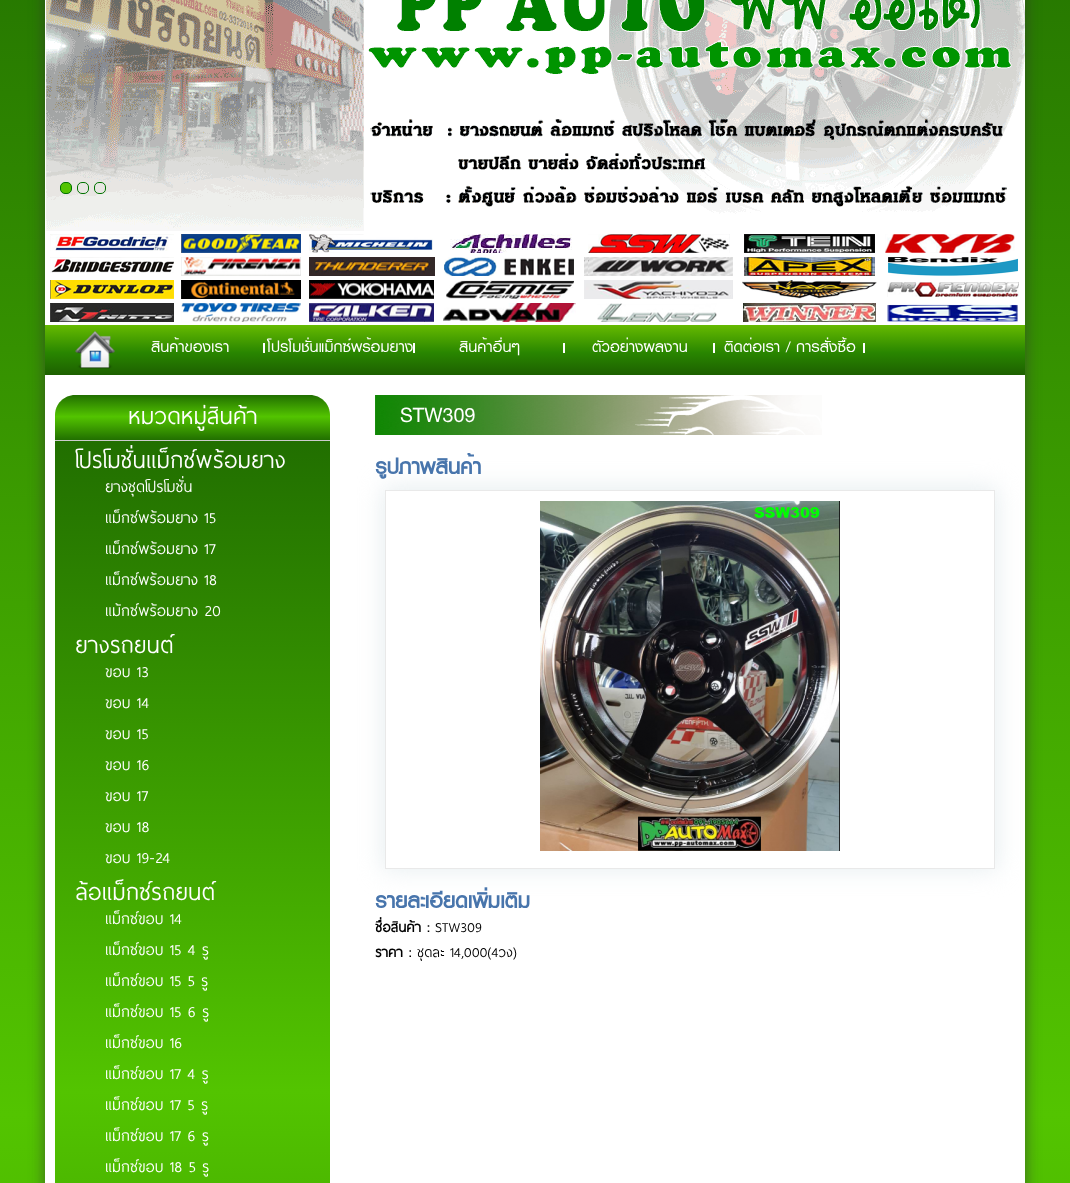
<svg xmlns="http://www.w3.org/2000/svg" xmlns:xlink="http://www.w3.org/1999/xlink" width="1070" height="1183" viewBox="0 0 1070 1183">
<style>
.cls-1{font:22px 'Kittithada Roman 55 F';fill:#ffffff}
.cls-2{font:30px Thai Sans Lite;fill:#ffffff}
.cls-3{font:20px Thai Sans Lite;fill:#ffffff}
.cls-4{font:30px 'Kittithada Roman 55 F';fill:#ffffff}
.cls-5{font:bold 30px 'Kittithada Roman 55 F';fill:#4875ac}
.cls-6{font:bold 18px Thai Sans Lite;fill:#000000}
.cls-7{font:18px Thai Sans Lite;fill:#000000}
</style>
<defs>
<linearGradient id="g1" gradientUnits="userSpaceOnUse" x1="535" y1="-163" x2="535" y2="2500"><stop offset="0" stop-color="#216f00"/><stop offset="0.48" stop-color="#53c400"/><stop offset="1" stop-color="#216f00"/></linearGradient>
<linearGradient id="g2" gradientUnits="userSpaceOnUse" x1="535" y1="325" x2="535" y2="375"><stop offset="0" stop-color="#66ba00"/><stop offset="0.55" stop-color="#298600"/><stop offset="1" stop-color="#1d6000"/></linearGradient>
<linearGradient id="g3" gradientUnits="userSpaceOnUse" x1="193" y1="395" x2="193" y2="440"><stop offset="0" stop-color="#216f00"/><stop offset="0.48" stop-color="#53c400"/><stop offset="1" stop-color="#216f00"/></linearGradient>
<linearGradient id="g4" gradientUnits="userSpaceOnUse" x1="192" y1="441" x2="193" y2="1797"><stop offset="0" stop-color="#216f00"/><stop offset="0.48" stop-color="#53c400"/><stop offset="1" stop-color="#216f00"/></linearGradient>
<clipPath id="clip1"><path d="M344 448H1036V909H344ZM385 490H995V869H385Z" clip-rule="evenodd"/></clipPath>
</defs>
<rect width="100%" height="100%" fill="#ffffff"/>
<rect fill="url(#g1)" x="0" y="0" width="1070" height="1183"/>
<rect fill="#323232" fill-opacity="0.64" filter="blur(7.5px)" x="45" y="-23" width="980" height="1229"/>
<rect fill="#ffffff" x="45" y="0" width="980" height="1183"/>
<image xlink:href="image0.png" x="46" y="0" width="979" height="231"/>
<rect fill="#53c400" stroke="#007200" x="60.5" y="182.5" width="11" height="11" rx="4.5"/>
<rect fill="none" stroke="#007200" x="77.5" y="182.5" width="11" height="11" rx="4.5"/>
<rect fill="none" stroke="#007200" x="94.5" y="182.5" width="11" height="11" rx="4.5"/>
<image xlink:href="image1.png" x="50" y="234" width="124" height="17"/>
<image xlink:href="image2.png" x="181" y="234" width="120" height="19"/>
<image xlink:href="image3.png" x="309" y="234" width="124" height="19"/>
<image xlink:href="image4.png" x="450" y="234" width="122" height="19"/>
<image xlink:href="image5.png" x="588" y="234" width="142" height="19"/>
<image xlink:href="image6.png" x="744" y="234" width="131" height="19"/>
<image xlink:href="image7.png" x="885" y="234" width="130" height="19"/>
<image xlink:href="image8.png" x="50" y="257" width="124" height="16"/>
<image xlink:href="image9.png" x="181" y="257" width="120" height="19"/>
<image xlink:href="image10.png" x="309" y="257" width="126" height="19"/>
<image xlink:href="image11.png" x="444" y="257" width="130" height="19"/>
<image xlink:href="image12.png" x="584" y="257" width="149" height="19"/>
<image xlink:href="image13.png" x="744" y="257" width="131" height="19"/>
<image xlink:href="image14.png" x="888" y="257" width="130" height="19"/>
<image xlink:href="image15.png" x="50" y="280" width="124" height="19"/>
<image xlink:href="image16.png" x="181" y="280" width="120" height="19"/>
<image xlink:href="image17.png" x="309" y="280" width="125" height="19"/>
<image xlink:href="image18.png" x="446" y="280" width="128" height="19"/>
<image xlink:href="image19.png" x="584" y="280" width="149" height="19"/>
<image xlink:href="image20.png" x="742" y="280" width="135" height="19"/>
<image xlink:href="image21.png" x="887" y="282" width="132" height="15"/>
<image xlink:href="image22.png" x="50" y="303" width="124" height="19"/>
<image xlink:href="image23.png" x="181" y="303" width="120" height="19"/>
<image xlink:href="image24.png" x="309" y="303" width="125" height="19"/>
<image xlink:href="image25.png" x="443" y="303" width="133" height="19"/>
<image xlink:href="image26.png" x="597" y="303" width="120" height="19"/>
<image xlink:href="image27.png" x="743" y="303" width="133" height="19"/>
<image xlink:href="image28.png" x="887" y="304" width="131" height="18"/>
<rect fill="url(#g2)" x="45" y="325" width="980" height="50"/>
<image xlink:href="image29.png" x="75" y="331" width="40" height="38"/>
<rect fill="#ffffff" x="263" y="343" width="2" height="10"/>
<rect fill="#ffffff" x="413" y="343" width="2" height="10"/>
<rect fill="#ffffff" x="563" y="343" width="2" height="10"/>
<rect fill="#ffffff" x="713" y="343" width="2" height="10"/>
<rect fill="#ffffff" x="863" y="343" width="2" height="10"/>
<path fill="url(#g3)" d="M75 395H310C321 395 330 404 330 415V440H55V415C55 404 64 395 75 395Z"/>
<rect fill="#cccccc" x="55" y="440" width="275" height="1"/>
<rect fill="url(#g4)" x="55" y="441" width="275" height="742"/>
<image xlink:href="image30.png" x="375" y="395" width="447" height="40"/>
<g clip-path="url(#clip1)">
<rect fill="#e7eef0" filter="blur(12.5px)" x="383" y="487" width="614" height="383"/>
</g>
<rect fill="none" stroke="#e9e9e9" x="385.5" y="490.5" width="609" height="378"/>
<image xlink:href="image31.png" x="540" y="501" width="300" height="350"/>
<text class="cls-1" x="151" y="352">สินค้าของเรา</text>
<text class="cls-1" x="267" y="352">โปรโมชั่นแม็กซ์พร้อมยาง</text>
<text class="cls-1" x="459" y="352">สินค้าอื่นๆ</text>
<text class="cls-1" x="592" y="352">ตัวอย่างผลงาน</text>
<text class="cls-1" x="724" y="352">ติดต่อเรา / การสั่งซื้อ</text>
<text class="cls-2" x="128" y="424">หมวดหมู่สินค้า</text>
<text class="cls-2" x="75" y="468">โปรโมชั่นแม็กซ์พร้อมยาง</text>
<text class="cls-3"><tspan x="105" y="492">ยางชุดโปรโมชั่น</tspan><tspan x="105" y="523">แม็กซ์พร้อมยาง 15</tspan><tspan x="105" y="554">แม็กซ์พร้อมยาง 17</tspan><tspan x="105" y="585">แม็กซ์พร้อมยาง 18</tspan><tspan x="105" y="616">แม้กซ์พร้อมยาง 20</tspan></text>
<text class="cls-2" x="75" y="653">ยางรถยนต์</text>
<text class="cls-3"><tspan x="105" y="677">ขอบ 13</tspan><tspan x="105" y="708">ขอบ 14</tspan><tspan x="105" y="739">ขอบ 15</tspan><tspan x="105" y="770">ขอบ 16</tspan><tspan x="105" y="801">ขอบ 17</tspan><tspan x="105" y="832">ขอบ 18</tspan><tspan x="105" y="863">ขอบ 19-24</tspan></text>
<text class="cls-2" x="75" y="900">ล้อแม็กซ์รถยนต์</text>
<text class="cls-3"><tspan x="105" y="924">แม็กซ์ขอบ 14</tspan><tspan x="105" y="955">แม็กซ์ขอบ 15 4 รู</tspan><tspan x="105" y="986">แม็กซ์ขอบ 15 5 รู</tspan><tspan x="105" y="1017">แม็กซ์ขอบ 15 6 รู</tspan><tspan x="105" y="1048">แม็กซ์ขอบ 16</tspan><tspan x="105" y="1079">แม็กซ์ขอบ 17 4 รู</tspan><tspan x="105" y="1110">แม็กซ์ขอบ 17 5 รู</tspan><tspan x="105" y="1141">แม็กซ์ขอบ 17 6 รู</tspan><tspan x="105" y="1172">แม็กซ์ขอบ 18 5 รู</tspan></text>
<text class="cls-4" x="400" y="422">STW309</text>
<text class="cls-5" x="375" y="474">รูปภาพสินค้า</text>
<text class="cls-5" x="375" y="908">รายละเอียดเพิ่มเติม</text>
<text class="cls-6" x="375" y="932">ชื่อสินค้า :</text>
<text class="cls-7" x="435" y="932">STW309</text>
<text class="cls-6" x="375" y="957">ราคา :</text>
<text class="cls-7" x="417" y="957">ชุดละ 14,000(4วง)</text>
</svg>
